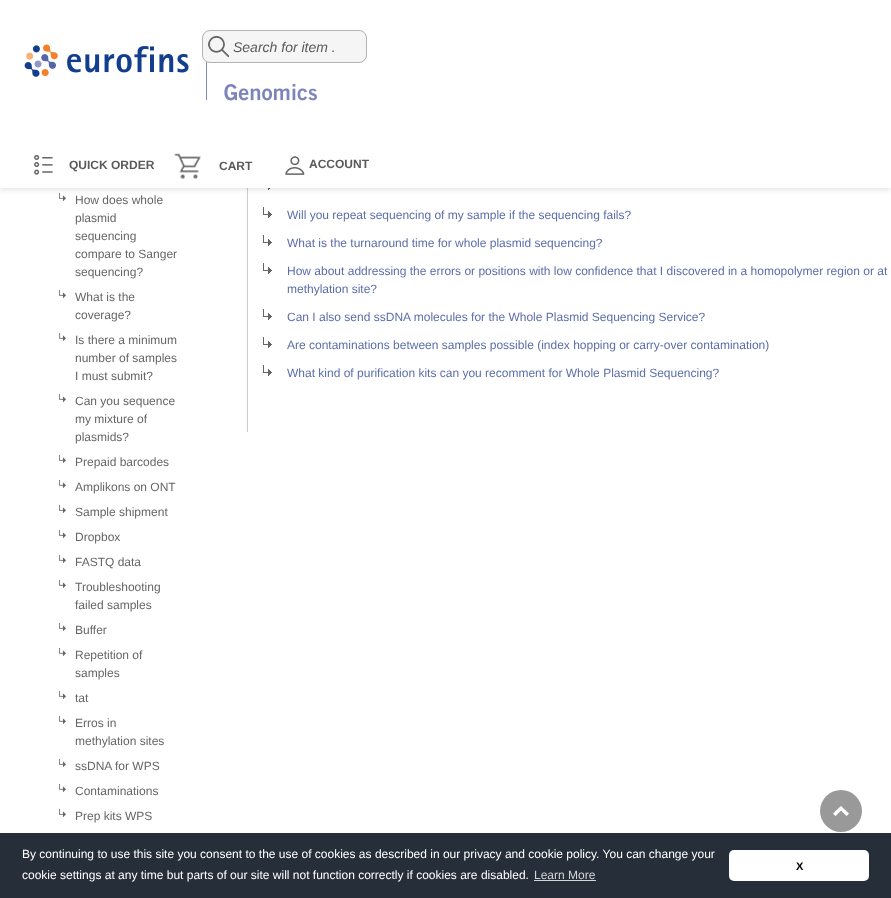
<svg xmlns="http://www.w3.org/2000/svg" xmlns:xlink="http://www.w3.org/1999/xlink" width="891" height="898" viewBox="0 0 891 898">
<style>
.cls-1{font:italic 14px Liberation Sans;fill:#5a5a5a}
.cls-2{font:bold 12px Liberation Sans;fill:#5a5a5a}
.cls-3{font:12px Liberation Sans;fill:#666666}
.cls-4{font:12px Liberation Sans;fill:#5c6eaa}
.cls-5{font:12px Liberation Sans;fill:#ffffff}
.cls-6{font:12px Liberation Sans;fill:#d3d5d7}
.cls-7{font:bold 11px Liberation Sans;fill:#000000}
</style>
<rect width="100%" height="100%" fill="#ffffff"/>
<image xlink:href="image5.png" x="59" y="193" width="7" height="8"/>
<rect fill="#cccccc" x="247" y="188" width="1" height="244"/>
<image xlink:href="image6.png" x="268" y="188" width="2" height="2"/>
<rect fill="#000000" fill-opacity="0.1" filter="blur(2.5px)" x="0" y="2" width="891" height="188"/>
<rect fill="#ffffff" x="0" y="0" width="891" height="188"/>
<image xlink:href="image1.png" x="24" y="44" width="293" height="57"/>
<rect fill="#f5f5f5" x="202" y="30" width="165" height="33" rx="8"/>
<image xlink:href="image0.png" x="208" y="36" width="21" height="21"/>
<rect fill="none" stroke="#b4b4b4" x="202.5" y="30.5" width="164" height="32" rx="7.5"/>
<image xlink:href="image2.png" x="34" y="155" width="19" height="20"/>
<image xlink:href="image3.png" x="174" y="153" width="27" height="26"/>
<image xlink:href="image4.png" x="285" y="156" width="20" height="19"/>
<image xlink:href="image5.png" x="59" y="290" width="7" height="8"/>
<image xlink:href="image5.png" x="59" y="333" width="7" height="8"/>
<image xlink:href="image5.png" x="59" y="394" width="7" height="8"/>
<image xlink:href="image5.png" x="59" y="455" width="7" height="8"/>
<image xlink:href="image5.png" x="59" y="480" width="7" height="8"/>
<image xlink:href="image5.png" x="59" y="505" width="7" height="8"/>
<image xlink:href="image5.png" x="59" y="530" width="7" height="8"/>
<image xlink:href="image5.png" x="59" y="555" width="7" height="8"/>
<image xlink:href="image5.png" x="59" y="580" width="7" height="8"/>
<image xlink:href="image5.png" x="59" y="623" width="7" height="8"/>
<image xlink:href="image5.png" x="59" y="648" width="7" height="8"/>
<image xlink:href="image5.png" x="59" y="691" width="7" height="8"/>
<image xlink:href="image5.png" x="59" y="716" width="7" height="8"/>
<image xlink:href="image5.png" x="59" y="759" width="7" height="8"/>
<image xlink:href="image5.png" x="59" y="784" width="7" height="8"/>
<image xlink:href="image5.png" x="59" y="809" width="7" height="8"/>
<image xlink:href="image7.png" x="263" y="207" width="9" height="11"/>
<image xlink:href="image7.png" x="263" y="235" width="9" height="11"/>
<image xlink:href="image7.png" x="263" y="263" width="9" height="11"/>
<image xlink:href="image7.png" x="263" y="309" width="9" height="11"/>
<image xlink:href="image7.png" x="263" y="337" width="9" height="11"/>
<image xlink:href="image7.png" x="263" y="365" width="9" height="11"/>
<circle fill="#000000" fill-opacity="0.4" cx="841" cy="811" r="21"/>
<image xlink:href="image8.png" x="833" y="806" width="16" height="10"/>
<rect fill="#252e39" x="0" y="833" width="891" height="65"/>
<rect fill="#d3d5d7" x="534" y="880" width="62" height="1"/>
<rect fill="#fefffe" x="729" y="850" width="140" height="31" rx="5"/>
<text class="cls-1" x="233" y="52">Search for item .</text>
<text class="cls-2" x="69" y="169">QUICK ORDER</text>
<text class="cls-2" x="219" y="170">CART</text>
<text class="cls-2" x="309" y="168">ACCOUNT</text>
<text class="cls-3"><tspan x="75" y="204">How does whole</tspan><tspan x="75" y="222">plasmid</tspan><tspan x="75" y="240">sequencing</tspan><tspan x="75" y="258">compare to Sanger</tspan><tspan x="75" y="276">sequencing?</tspan></text>
<text class="cls-3"><tspan x="75" y="301">What is the</tspan><tspan x="75" y="319">coverage?</tspan></text>
<text class="cls-3"><tspan x="75" y="344">Is there a minimum</tspan><tspan x="75" y="362">number of samples</tspan><tspan x="75" y="380">I must submit?</tspan></text>
<text class="cls-3"><tspan x="75" y="405">Can you sequence</tspan><tspan x="75" y="423">my mixture of</tspan><tspan x="75" y="441">plasmids?</tspan></text>
<text class="cls-3" x="75" y="466">Prepaid barcodes</text>
<text class="cls-3" x="75" y="491">Amplikons on ONT</text>
<text class="cls-3" x="75" y="516">Sample shipment</text>
<text class="cls-3" x="75" y="541">Dropbox</text>
<text class="cls-3" x="75" y="566">FASTQ data</text>
<text class="cls-3"><tspan x="75" y="591">Troubleshooting</tspan><tspan x="75" y="609">failed samples</tspan></text>
<text class="cls-3" x="75" y="634">Buffer</text>
<text class="cls-3"><tspan x="75" y="659">Repetition of</tspan><tspan x="75" y="677">samples</tspan></text>
<text class="cls-3" x="75" y="702">tat</text>
<text class="cls-3"><tspan x="75" y="727">Erros in</tspan><tspan x="75" y="745">methylation sites</tspan></text>
<text class="cls-3" x="75" y="770">ssDNA for WPS</text>
<text class="cls-3" x="75" y="795">Contaminations</text>
<text class="cls-3" x="75" y="820">Prep kits WPS</text>
<text class="cls-4" x="287" y="219">Will you repeat sequencing of my sample if the sequencing fails?</text>
<text class="cls-4" x="287" y="247">What is the turnaround time for whole plasmid sequencing?</text>
<text class="cls-4"><tspan x="287" y="275">How about addressing the errors or positions with low confidence that I discovered in a homopolymer region or at</tspan><tspan x="287" y="293">methylation site?</tspan></text>
<text class="cls-4" x="287" y="321">Can I also send ssDNA molecules for the Whole Plasmid Sequencing Service?</text>
<text class="cls-4" x="287" y="349">Are contaminations between samples possible (index hopping or carry-over contamination)</text>
<text class="cls-4" x="287" y="377">What kind of purification kits can you recomment for Whole Plasmid Sequencing?</text>
<text class="cls-5"><tspan x="22" y="858">By continuing to use this site you consent to the use of cookies as described in our privacy and cookie policy. You can change your</tspan><tspan x="22" y="879">cookie settings at any time but parts of our site will not function correctly if cookies are disabled.</tspan></text>
<text class="cls-6" x="534" y="879">Learn More</text>
<text class="cls-7" x="796" y="870">X</text>
</svg>
